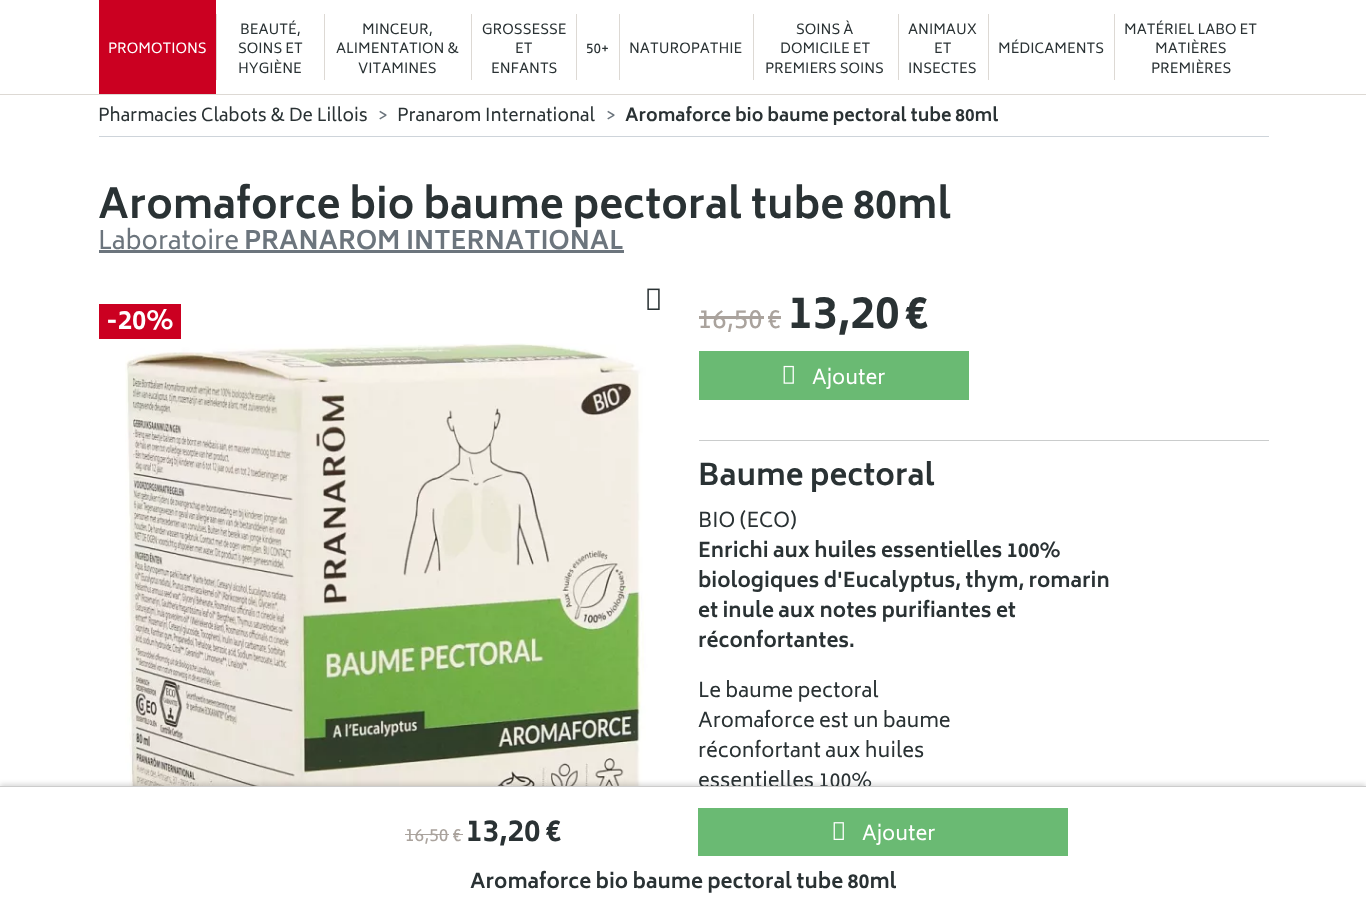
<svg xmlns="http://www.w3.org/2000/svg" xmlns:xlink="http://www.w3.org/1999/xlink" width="1366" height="917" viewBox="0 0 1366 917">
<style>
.cls-1{font:13.75px Biryani;fill:#ffffff}
.cls-2{font:13.75px Biryani;fill:#2a3234}
.cls-3{font:17.5px Biryani;fill:#2a3234}
.cls-4{font:17.5px Biryani;fill:#6c757d}
.cls-5{font:bold 17.5px Biryani;fill:#2a3234}
.cls-6{font:bold 40px Biryani;fill:#2a3234}
.cls-7{font:25px Biryani;fill:#6c757d}
.cls-8{font:bold 25px Biryani;fill:#6c757d}
.cls-9{font:bold 26px Biryani;fill:#ffffff}
.cls-10{font:26px Biryani;fill:#aaa39d}
.cls-11{font:bold 45px Biryani;fill:#2a3234}
.cls-12{font:20px Biryani;fill:#ffffff}
.cls-13{font:bold 29.5px Biryani;fill:#2a3234}
.cls-14{font:20px Biryani;fill:#2a3234}
.cls-15{font:bold 20px Biryani;fill:#2a3234}
.cls-16{font:17.5px Biryani;fill:#aaa39d}
.cls-17{font:bold 30px Biryani;fill:#2a3234}
</style>
<defs>
<clipPath id="clip1"><rect x="699" y="461" width="570" height="438"/></clipPath>
</defs>
<rect width="100%" height="100%" fill="#ffffff"/>
<rect fill="#ddd9d4" x="0" y="94" width="1366" height="1"/>
<rect fill="#cb0021" x="99" y="0" width="117" height="94"/>
<rect fill="#ddd9d4" x="216" y="14" width="1" height="66"/>
<rect fill="#ddd9d4" x="324" y="14" width="1" height="66"/>
<rect fill="#ddd9d4" x="471" y="14" width="1" height="66"/>
<rect fill="#ddd9d4" x="576" y="14" width="1" height="66"/>
<rect fill="#ddd9d4" x="619" y="14" width="1" height="66"/>
<rect fill="#ddd9d4" x="753" y="14" width="1" height="66"/>
<rect fill="#ddd9d4" x="898" y="14" width="1" height="66"/>
<rect fill="#ddd9d4" x="988" y="14" width="1" height="66"/>
<rect fill="#ddd9d4" x="1114" y="14" width="1" height="66"/>
<rect fill="#ced4da" x="99" y="136" width="1170" height="1"/>
<rect fill="#6c757d" x="99" y="250" width="525" height="3"/>
<image xlink:href="image0.png" x="647" y="288" width="13" height="22"/>
<rect fill="#cb0021" x="99" y="304" width="82" height="35"/>
<image xlink:href="image1.png" x="125" y="343" width="544" height="443"/>
<rect fill="#aaa39d" x="699" y="316" width="65" height="3"/>
<rect fill="#aaa39d" x="768" y="316" width="13" height="3"/>
<rect fill="#6aba73" x="699" y="351" width="270" height="49"/>
<image xlink:href="image2.png" x="783" y="365" width="11" height="19"/>
<rect fill="#cacccc" x="699" y="440" width="570" height="1"/>
<rect fill="#000000" fill-opacity="0.15" filter="blur(2.5px)" x="0" y="784" width="1366" height="131"/>
<text class="cls-1" x="108" y="53">PROMOTIONS</text>
<text class="cls-2" x="240" y="34">BEAUTÉ,</text>
<text class="cls-2"><tspan x="238" y="53">SOINS ET</tspan><tspan x="238" y="73">HYGIÈNE</tspan></text>
<text class="cls-2" x="362" y="34">MINCEUR,</text>
<text class="cls-2" x="336" y="53">ALIMENTATION &amp;</text>
<text class="cls-2" x="358" y="73">VITAMINES</text>
<text class="cls-2" x="482" y="34">GROSSESSE</text>
<text class="cls-2" x="515" y="53">ET</text>
<text class="cls-2" x="491" y="73">ENFANTS</text>
<text class="cls-2" x="586" y="53">50+</text>
<text class="cls-2" x="629" y="53">NATUROPATHIE</text>
<text class="cls-2" x="796" y="34">SOINS À</text>
<text class="cls-2" x="780" y="53">DOMICILE ET</text>
<text class="cls-2" x="765" y="73">PREMIERS SOINS</text>
<text class="cls-2" x="908" y="34">ANIMAUX</text>
<text class="cls-2" x="934" y="53">ET</text>
<text class="cls-2" x="908" y="73">INSECTES</text>
<text class="cls-2" x="998" y="53">MÉDICAMENTS</text>
<text class="cls-2" x="1124" y="34">MATÉRIEL LABO ET</text>
<text class="cls-2" x="1155" y="53">MATIÈRES</text>
<text class="cls-2" x="1151" y="73">PREMIÈRES</text>
<text class="cls-3" x="98" y="121">Pharmacies Clabots &amp; De Lillois</text>
<text class="cls-4" x="378" y="121">&gt;</text>
<text class="cls-3" x="397" y="121">Pranarom International</text>
<text class="cls-4" x="606" y="121">&gt;</text>
<text class="cls-5" x="625" y="121">Aromaforce bio baume pectoral tube 80ml</text>
<text class="cls-6" x="98" y="218">Aromaforce bio baume pectoral tube 80ml</text>
<text class="cls-7" x="98" y="249">Laboratoire</text>
<text class="cls-8" x="244" y="249">PRANAROM INTERNATIONAL</text>
<text class="cls-9" x="106" y="329">-20%</text>
<text class="cls-10" x="698" y="328">16,50</text>
<text class="cls-10" x="767" y="328">€</text>
<text class="cls-11" x="788" y="328">13,20</text>
<text class="cls-11" x="904" y="328">€</text>
<text class="cls-12" x="812" y="384">Ajouter</text>
<g clip-path="url(#clip1)">
<text class="cls-13" x="698" y="485">Baume pectoral</text>
</g>
<text class="cls-14" x="698" y="527">BIO (ECO)</text>
<text class="cls-15"><tspan x="698" y="557">Enrichi aux huiles essentielles 100%</tspan><tspan x="698" y="587">biologiques d'Eucalyptus, thym, romarin</tspan><tspan x="698" y="617">et inule aux notes purifiantes et</tspan><tspan x="698" y="647">réconfortantes.</tspan></text>
<text class="cls-14"><tspan x="698" y="697">Le baume pectoral</tspan><tspan x="698" y="727">Aromaforce est un baume</tspan><tspan x="698" y="757">réconfortant aux huiles</tspan><tspan x="698" y="787">essentielles 100%</tspan></text>
<rect fill="#ffffff" x="0" y="787" width="1366" height="130"/>
<rect fill="#cccccc" x="0" y="786" width="1366" height="1"/>
<text class="cls-16" x="405" y="841">16,50 €</text>
<rect fill="#aaa39d" x="405" y="834" width="44" height="1"/>
<rect fill="#aaa39d" x="453" y="834" width="10" height="1"/>
<text class="cls-17" x="466" y="841">13,20</text>
<text class="cls-17" x="545" y="841">€</text>
<rect fill="#6aba73" x="698" y="808" width="370" height="48"/>
<image xlink:href="image3.png" x="833" y="822" width="11" height="18"/>
<text class="cls-12" x="862" y="840">Ajouter</text>
<text class="cls-15" x="470" y="888">Aromaforce bio baume pectoral tube 80ml</text>
</svg>
